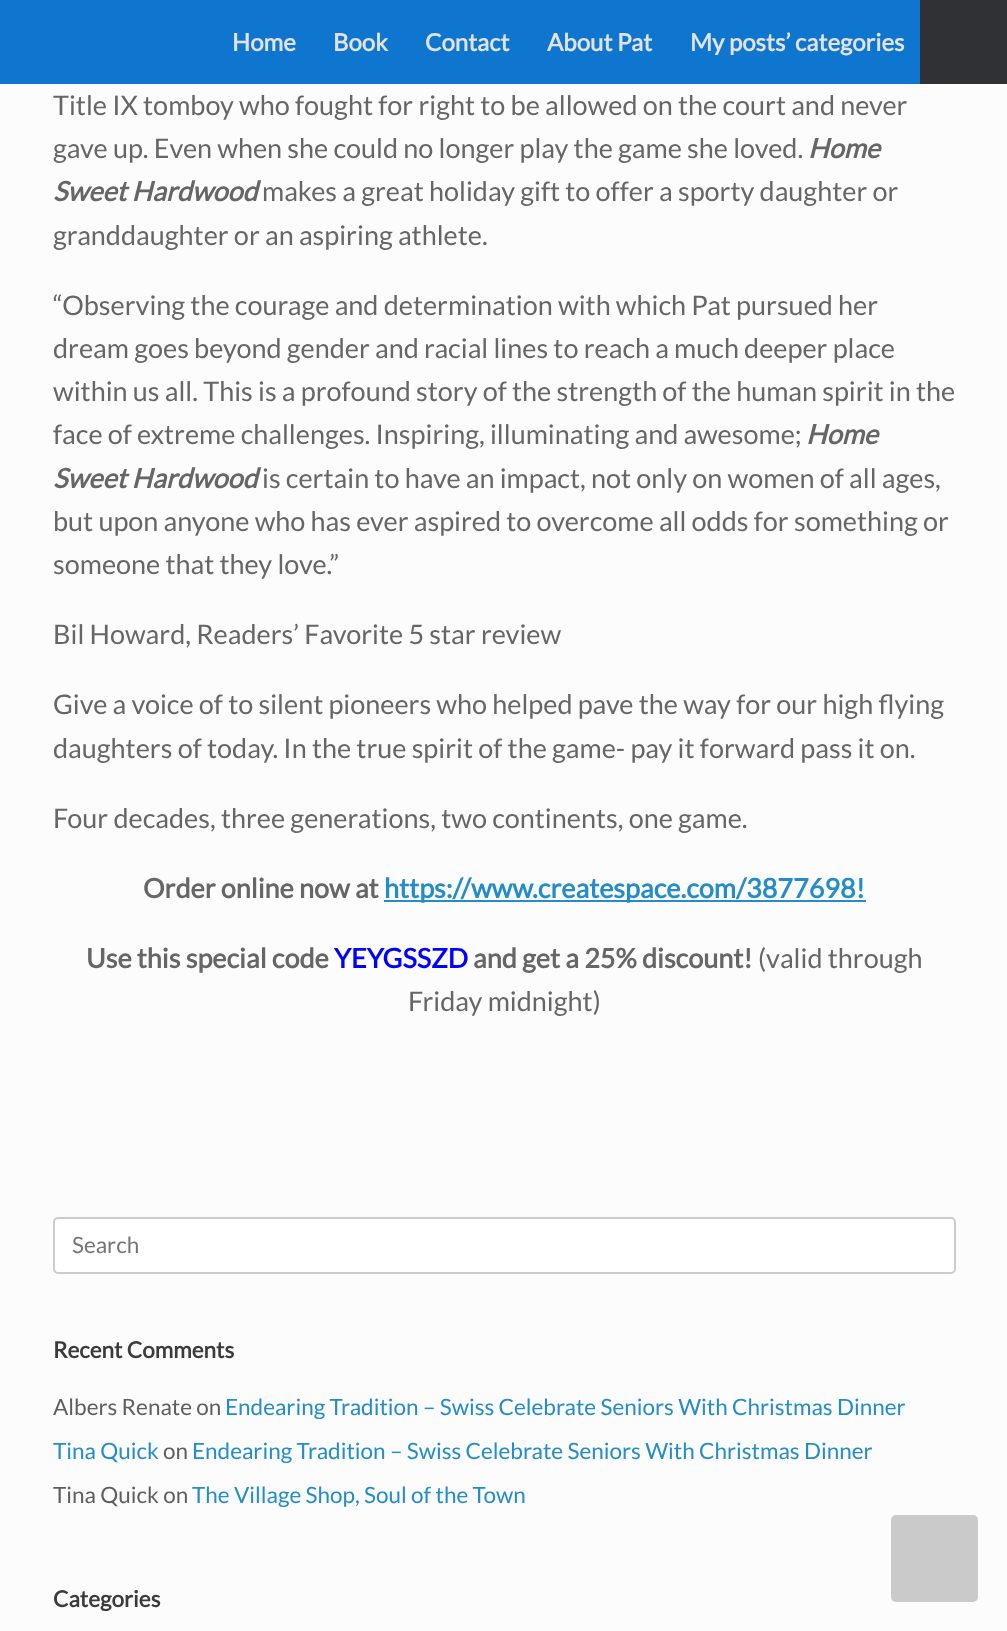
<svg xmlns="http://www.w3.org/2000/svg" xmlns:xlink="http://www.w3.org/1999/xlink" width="1007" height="1631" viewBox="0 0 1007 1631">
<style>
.cls-1{font:bold 24px Lato;fill:#e2e2e2}
.cls-2{font:27px Lato;fill:#666666}
.cls-3{font:italic bold 27px Lato;fill:#666666}
.cls-4{font:bold 27px Lato;fill:#666666}
.cls-5{font:bold 27px Lato;fill:#248cc8}
.cls-6{font:bold 27px Lato;fill:#0000ff}
.cls-7{font:22.5px Lato;fill:#757575}
.cls-8{font:bold 22.5px Lato;fill:#3b3b3b}
.cls-9{font:22.5px Lato;fill:#5e5e5e}
.cls-10{font:22.5px Lato;fill:#248cc8}
</style>
<rect width="100%" height="100%" fill="#fcfcfc"/>
<rect fill="#0f76d0" x="0" y="0" width="920" height="84"/>
<rect fill="#303134" x="920" y="0" width="87" height="84"/>
<rect fill="#248cc8" x="384" y="900" width="482" height="2"/>
<rect fill="#ffffff" stroke="#cccccc" stroke-width="2" x="54" y="1218" width="901" height="55" rx="4"/>
<rect fill="#cacaca" x="891" y="1515" width="87" height="87" rx="5"/>
<text class="cls-1" x="232" y="51">Home</text>
<text class="cls-1" x="333" y="51">Book</text>
<text class="cls-1" x="425" y="51">Contact</text>
<text class="cls-1" x="547" y="51">About Pat</text>
<text class="cls-1" x="690" y="51">My posts’ categories</text>
<text class="cls-2"><tspan x="53" y="115">Title IX tomboy who fought for right to be allowed on the court and never</tspan><tspan x="53" y="158">gave up. Even when she could no longer play the game she loved.</tspan></text>
<text class="cls-3" x="808" y="158">Home</text>
<text class="cls-3" x="53" y="201">Sweet Hardwood</text>
<text class="cls-2" x="262" y="201">makes a great holiday gift to offer a sporty daughter or</text>
<text class="cls-2" x="53" y="245">granddaughter or an aspiring athlete.</text>
<text class="cls-2"><tspan x="53" y="315">“Observing the courage and determination with which Pat pursued her</tspan><tspan x="53" y="358">dream goes beyond gender and racial lines to reach a much deeper place</tspan><tspan x="53" y="401">within us all. This is a profound story of the strength of the human spirit in the</tspan><tspan x="53" y="444">face of extreme challenges. Inspiring, illuminating and awesome;</tspan></text>
<text class="cls-3" x="806" y="444">Home</text>
<text class="cls-3" x="53" y="488">Sweet Hardwood</text>
<text class="cls-2" x="262" y="488">is certain to have an impact, not only on women of all ages,</text>
<text class="cls-2"><tspan x="53" y="531">but upon anyone who has ever aspired to overcome all odds for something or</tspan><tspan x="53" y="574">someone that they love.”</tspan></text>
<text class="cls-2" x="53" y="644">Bil Howard, Readers’ Favorite 5 star review</text>
<text class="cls-2"><tspan x="53" y="714">Give a voice of to silent pioneers who helped pave the way for our high flying</tspan><tspan x="53" y="758">daughters of today. In the true spirit of the game- pay it forward pass it on.</tspan></text>
<text class="cls-2" x="53" y="828">Four decades, three generations, two continents, one game.</text>
<text class="cls-4" x="143" y="898">Order online now at</text>
<text class="cls-5" x="384" y="898">https://www.createspace.com/3877698!</text>
<text class="cls-4" x="86" y="968">Use this special code</text>
<text class="cls-6" x="334" y="968">YEYGSSZD</text>
<text class="cls-4" x="473" y="968">and get a 25% discount!</text>
<text class="cls-2" x="758" y="968">(valid through</text>
<text class="cls-2" x="408" y="1011">Friday midnight)</text>
<text class="cls-7" x="72" y="1253">Search</text>
<text class="cls-8" x="53" y="1358">Recent Comments</text>
<text class="cls-9" x="53" y="1415">Albers Renate on</text>
<text class="cls-10" x="225" y="1415">Endearing Tradition – Swiss Celebrate Seniors With Christmas Dinner</text>
<text class="cls-10" x="53" y="1459">Tina Quick</text>
<text class="cls-9" x="163" y="1459">on</text>
<text class="cls-10" x="192" y="1459">Endearing Tradition – Swiss Celebrate Seniors With Christmas Dinner</text>
<text class="cls-9" x="53" y="1503">Tina Quick on</text>
<text class="cls-10" x="192" y="1503">The Village Shop, Soul of the Town</text>
<text class="cls-8" x="53" y="1607">Categories</text>
</svg>
